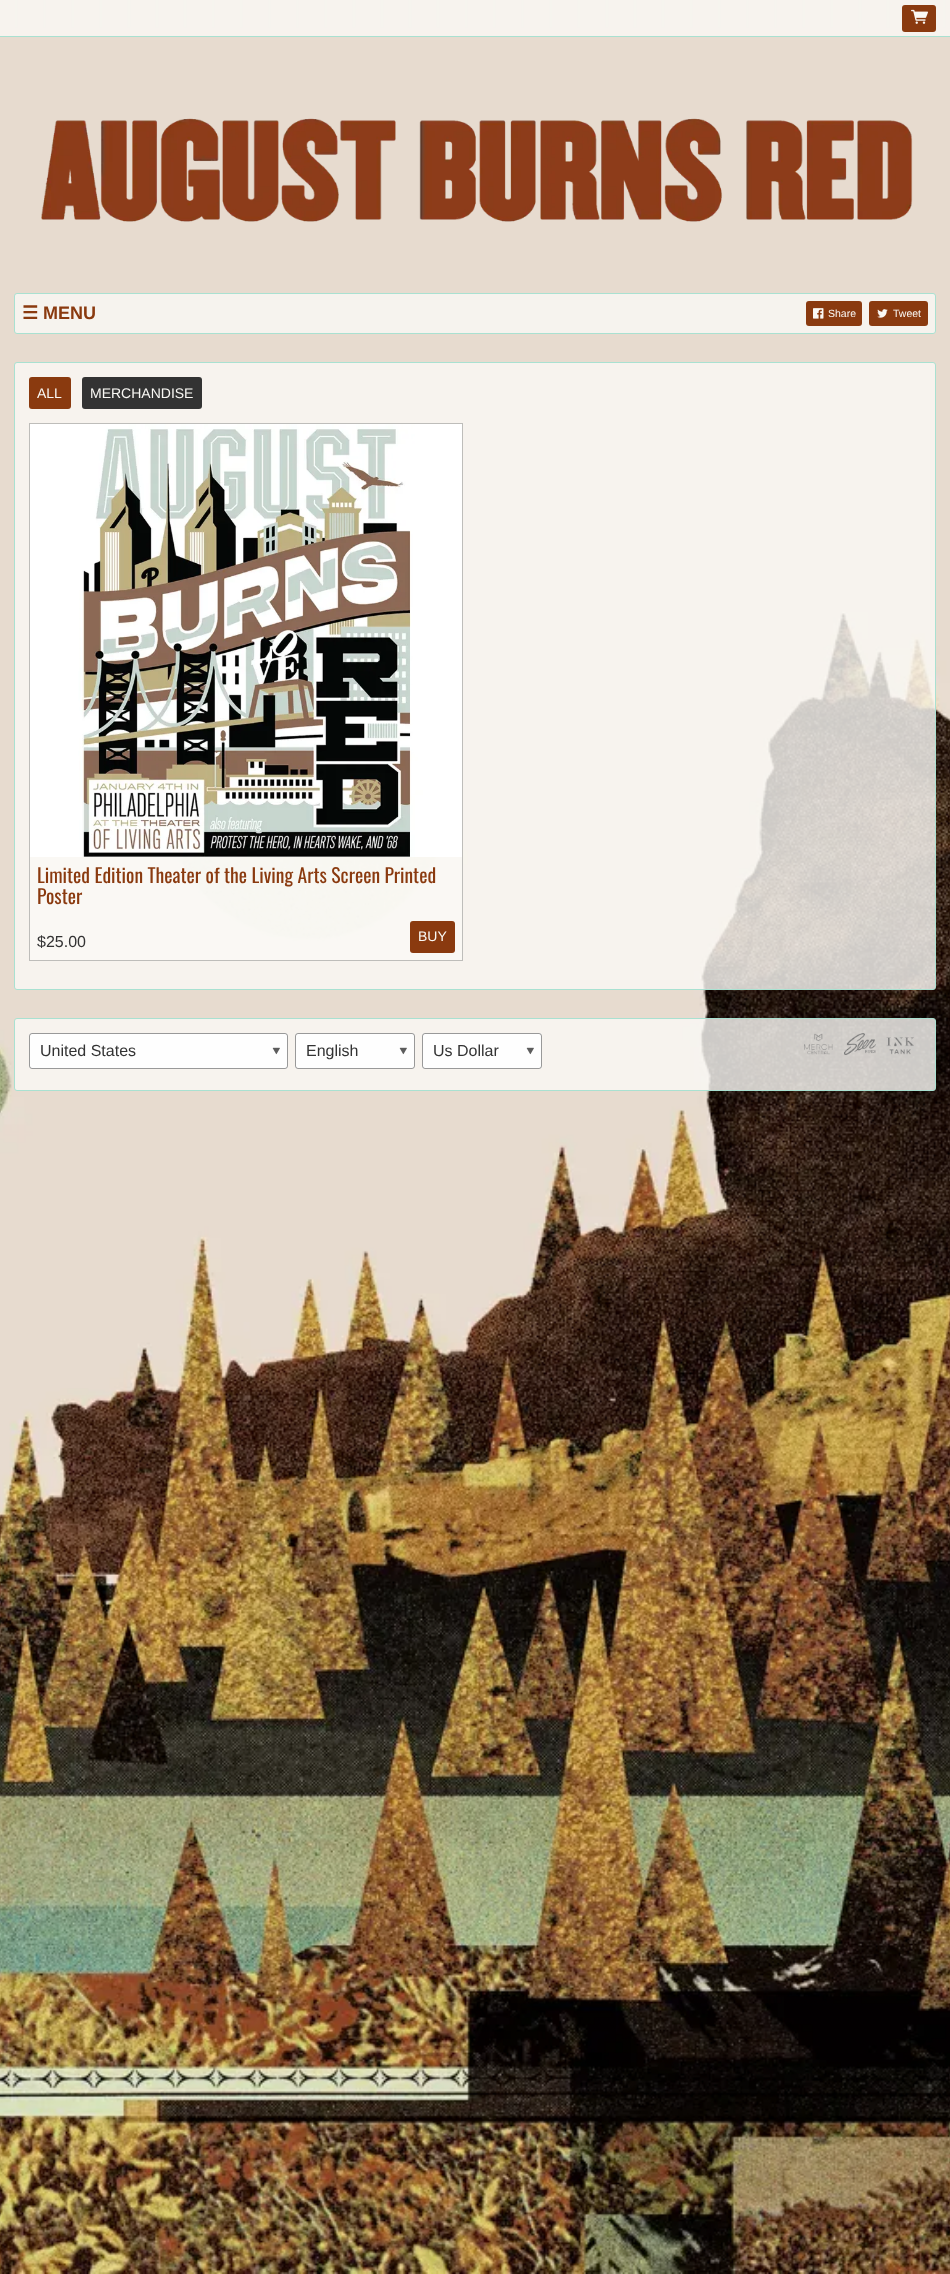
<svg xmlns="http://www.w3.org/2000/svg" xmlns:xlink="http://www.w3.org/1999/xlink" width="950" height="2274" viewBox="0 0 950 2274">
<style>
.cls-1{font:bold 18px DejaVu Sans;fill:#8a3a0f}
.cls-2{font:bold 18px Liberation Sans;fill:#8a3a0f}
.cls-3{font:10.5px Liberation Sans;fill:#faf9f5}
.cls-4{font:14px Liberation Sans;fill:#faf9f5}
.cls-5{font:19.6px Oswald;fill:#8a3a0f}
.cls-6{font:16px Liberation Sans;fill:#333333}
</style>
<rect width="100%" height="100%" fill="#ffffff"/>
<image xlink:href="image0.png" x="0" y="0" width="950" height="2274"/>
<rect fill="#faf9f5" fill-opacity="0.81" x="0" y="0" width="950" height="36"/>
<rect fill="#a9e1d1" x="0" y="36" width="950" height="1"/>
<rect fill="#8a3a0f" x="902" y="5" width="34" height="27" rx="3"/>
<image xlink:href="image1.png" x="911" y="9" width="17" height="15"/>
<image xlink:href="image2.png" x="41" y="118" width="872" height="104"/>
<rect fill="#f6f3ee" stroke="#a9e1d1" x="14.5" y="293.5" width="921" height="40" rx="2.5"/>
<rect fill="#8a3a0f" x="806" y="301" width="56" height="25" rx="3"/>
<image xlink:href="image3.png" x="813" y="308" width="11" height="11"/>
<rect fill="#8a3a0f" x="869" y="301" width="59" height="25" rx="3"/>
<image xlink:href="image4.png" x="877" y="309" width="11" height="9"/>
<rect fill="#faf9f5" fill-opacity="0.81" stroke="#a9e1d1" x="14.5" y="362.5" width="921" height="627" rx="2.5"/>
<rect fill="#8a3a0f" x="29" y="377" width="42" height="32" rx="3"/>
<rect fill="#333333" x="82" y="377" width="120" height="32" rx="3"/>
<rect fill="#faf9f5" fill-opacity="0.81" x="30" y="857" width="432" height="103"/>
<rect fill="none" stroke="#bebdba" x="29.5" y="423.5" width="433" height="537"/>
<image xlink:href="image5.png" x="30" y="424" width="432" height="433"/>
<rect fill="#8a3a0f" x="410" y="921" width="45" height="32" rx="3"/>
<rect fill="#faf9f5" fill-opacity="0.81" stroke="#a9e1d1" x="14.5" y="1018.5" width="921" height="72" rx="2.5"/>
<rect fill="#fefefe" x="29" y="1033" width="259" height="36" rx="3"/>
<rect fill="none" stroke="#333333" stroke-opacity="0.5" x="29.5" y="1033.5" width="258" height="35" rx="2.5"/>
<image xlink:href="image6.png" x="272" y="1047" width="8" height="8"/>
<rect fill="#fefefe" x="295" y="1033" width="120" height="36" rx="3"/>
<rect fill="none" stroke="#333333" stroke-opacity="0.5" x="295.5" y="1033.5" width="119" height="35" rx="2.5"/>
<image xlink:href="image6.png" x="399" y="1047" width="8" height="8"/>
<rect fill="#fefefe" x="422" y="1033" width="120" height="36" rx="3"/>
<rect fill="none" stroke="#333333" stroke-opacity="0.5" x="422.5" y="1033.5" width="119" height="35" rx="2.5"/>
<image xlink:href="image6.png" x="526" y="1047" width="8" height="8"/>
<image xlink:href="image7.png" x="804" y="1033" width="110" height="22"/>
<text class="cls-1" x="22" y="319">☰</text>
<text class="cls-2" x="43" y="319">MENU</text>
<text class="cls-3" x="828" y="317">Share</text>
<text class="cls-3" x="893" y="317">Tweet</text>
<text class="cls-4" x="37" y="398">ALL</text>
<text class="cls-4" x="90" y="398">MERCHANDISE</text>
<text class="cls-5"><tspan x="37" y="883">Limited Edition Theater of the Living Arts Screen Printed</tspan><tspan x="37" y="904">Poster</tspan></text>
<text class="cls-6" x="37" y="947">$25.00</text>
<text class="cls-4" x="418" y="941">BUY</text>
<text class="cls-6" x="40" y="1056">United States</text>
<text class="cls-6" x="306" y="1056">English</text>
<text class="cls-6" x="433" y="1056">Us Dollar</text>
</svg>
